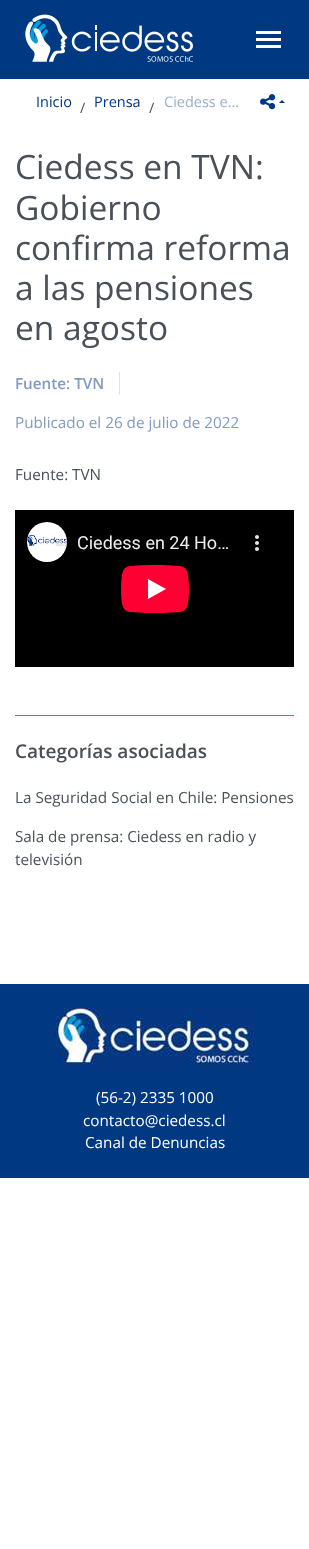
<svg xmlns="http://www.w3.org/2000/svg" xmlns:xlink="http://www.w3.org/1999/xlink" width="309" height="1549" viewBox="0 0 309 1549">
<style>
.cls-1{font:14.5px Open Sans;fill:#003882}
.cls-2{font:14.5px Open Sans;fill:#495057}
.cls-3{font:14.5px Open Sans;fill:#99afcd}
.cls-4{font:33.5px Open Sans;fill:#495057}
.cls-5{font:600 15.25px Open Sans;fill:#8299c2}
.cls-6{font:15.25px Open Sans;fill:#8299c2}
.cls-7{font:15.25px Open Sans;fill:#495057}
.cls-8{font:600 19px Open Sans;fill:#495057}
.cls-9{font:15.25px Open Sans;fill:#ffffff}
</style>
<rect width="100%" height="100%" fill="#ffffff"/>
<rect fill="#003882" x="0" y="0" width="309" height="79"/>
<image xlink:href="image0.png" x="25" y="14" width="168" height="48"/>
<rect fill="#ffffff" x="256" y="31" width="25" height="3"/>
<rect fill="#ffffff" x="256" y="38" width="25" height="3"/>
<rect fill="#ffffff" x="256" y="45" width="25" height="3"/>
<image xlink:href="image1.png" x="260" y="94" width="16" height="16"/>
<path fill="#003882" d="M285 103H279L282 100Z"/>
<rect fill="#dee2e6" x="119" y="372" width="1" height="23"/>
<image xlink:href="image2.png" x="15" y="510" width="279" height="157"/>
<rect fill="#17a2b8" x="15" y="715" width="279" height="1"/>
<rect fill="#003882" x="0" y="984" width="309" height="194"/>
<image xlink:href="image3.png" x="55" y="1008" width="200" height="62"/>
<text class="cls-1" x="36" y="107">Inicio</text>
<text class="cls-2" x="80" y="113">/</text>
<text class="cls-1" x="94" y="107">Prensa</text>
<text class="cls-2" x="149" y="113">/</text>
<text class="cls-3" x="164" y="107">Ciedess e…</text>
<text class="cls-4"><tspan x="15" y="179">Ciedess en TVN:</tspan><tspan x="15" y="220">Gobierno</tspan><tspan x="15" y="260">confirma reforma</tspan><tspan x="15" y="300">a las pensiones</tspan><tspan x="15" y="340">en agosto</tspan></text>
<text class="cls-5" x="15" y="389">Fuente: TVN</text>
<text class="cls-6" x="15" y="428">Publicado el 26 de julio de 2022</text>
<text class="cls-7" x="15" y="480">Fuente: TVN</text>
<text class="cls-8" x="15" y="758">Categorías asociadas</text>
<text class="cls-7" x="15" y="803">La Seguridad Social en Chile: Pensiones</text>
<text class="cls-7"><tspan x="15" y="842">Sala de prensa: Ciedess en radio y</tspan><tspan x="15" y="865">televisión</tspan></text>
<text class="cls-9" x="96" y="1103">(56-2) 2335 1000</text>
<text class="cls-9" x="83" y="1126">contacto@ciedess.cl</text>
<text class="cls-9" x="85" y="1148">Canal de Denuncias</text>
</svg>
